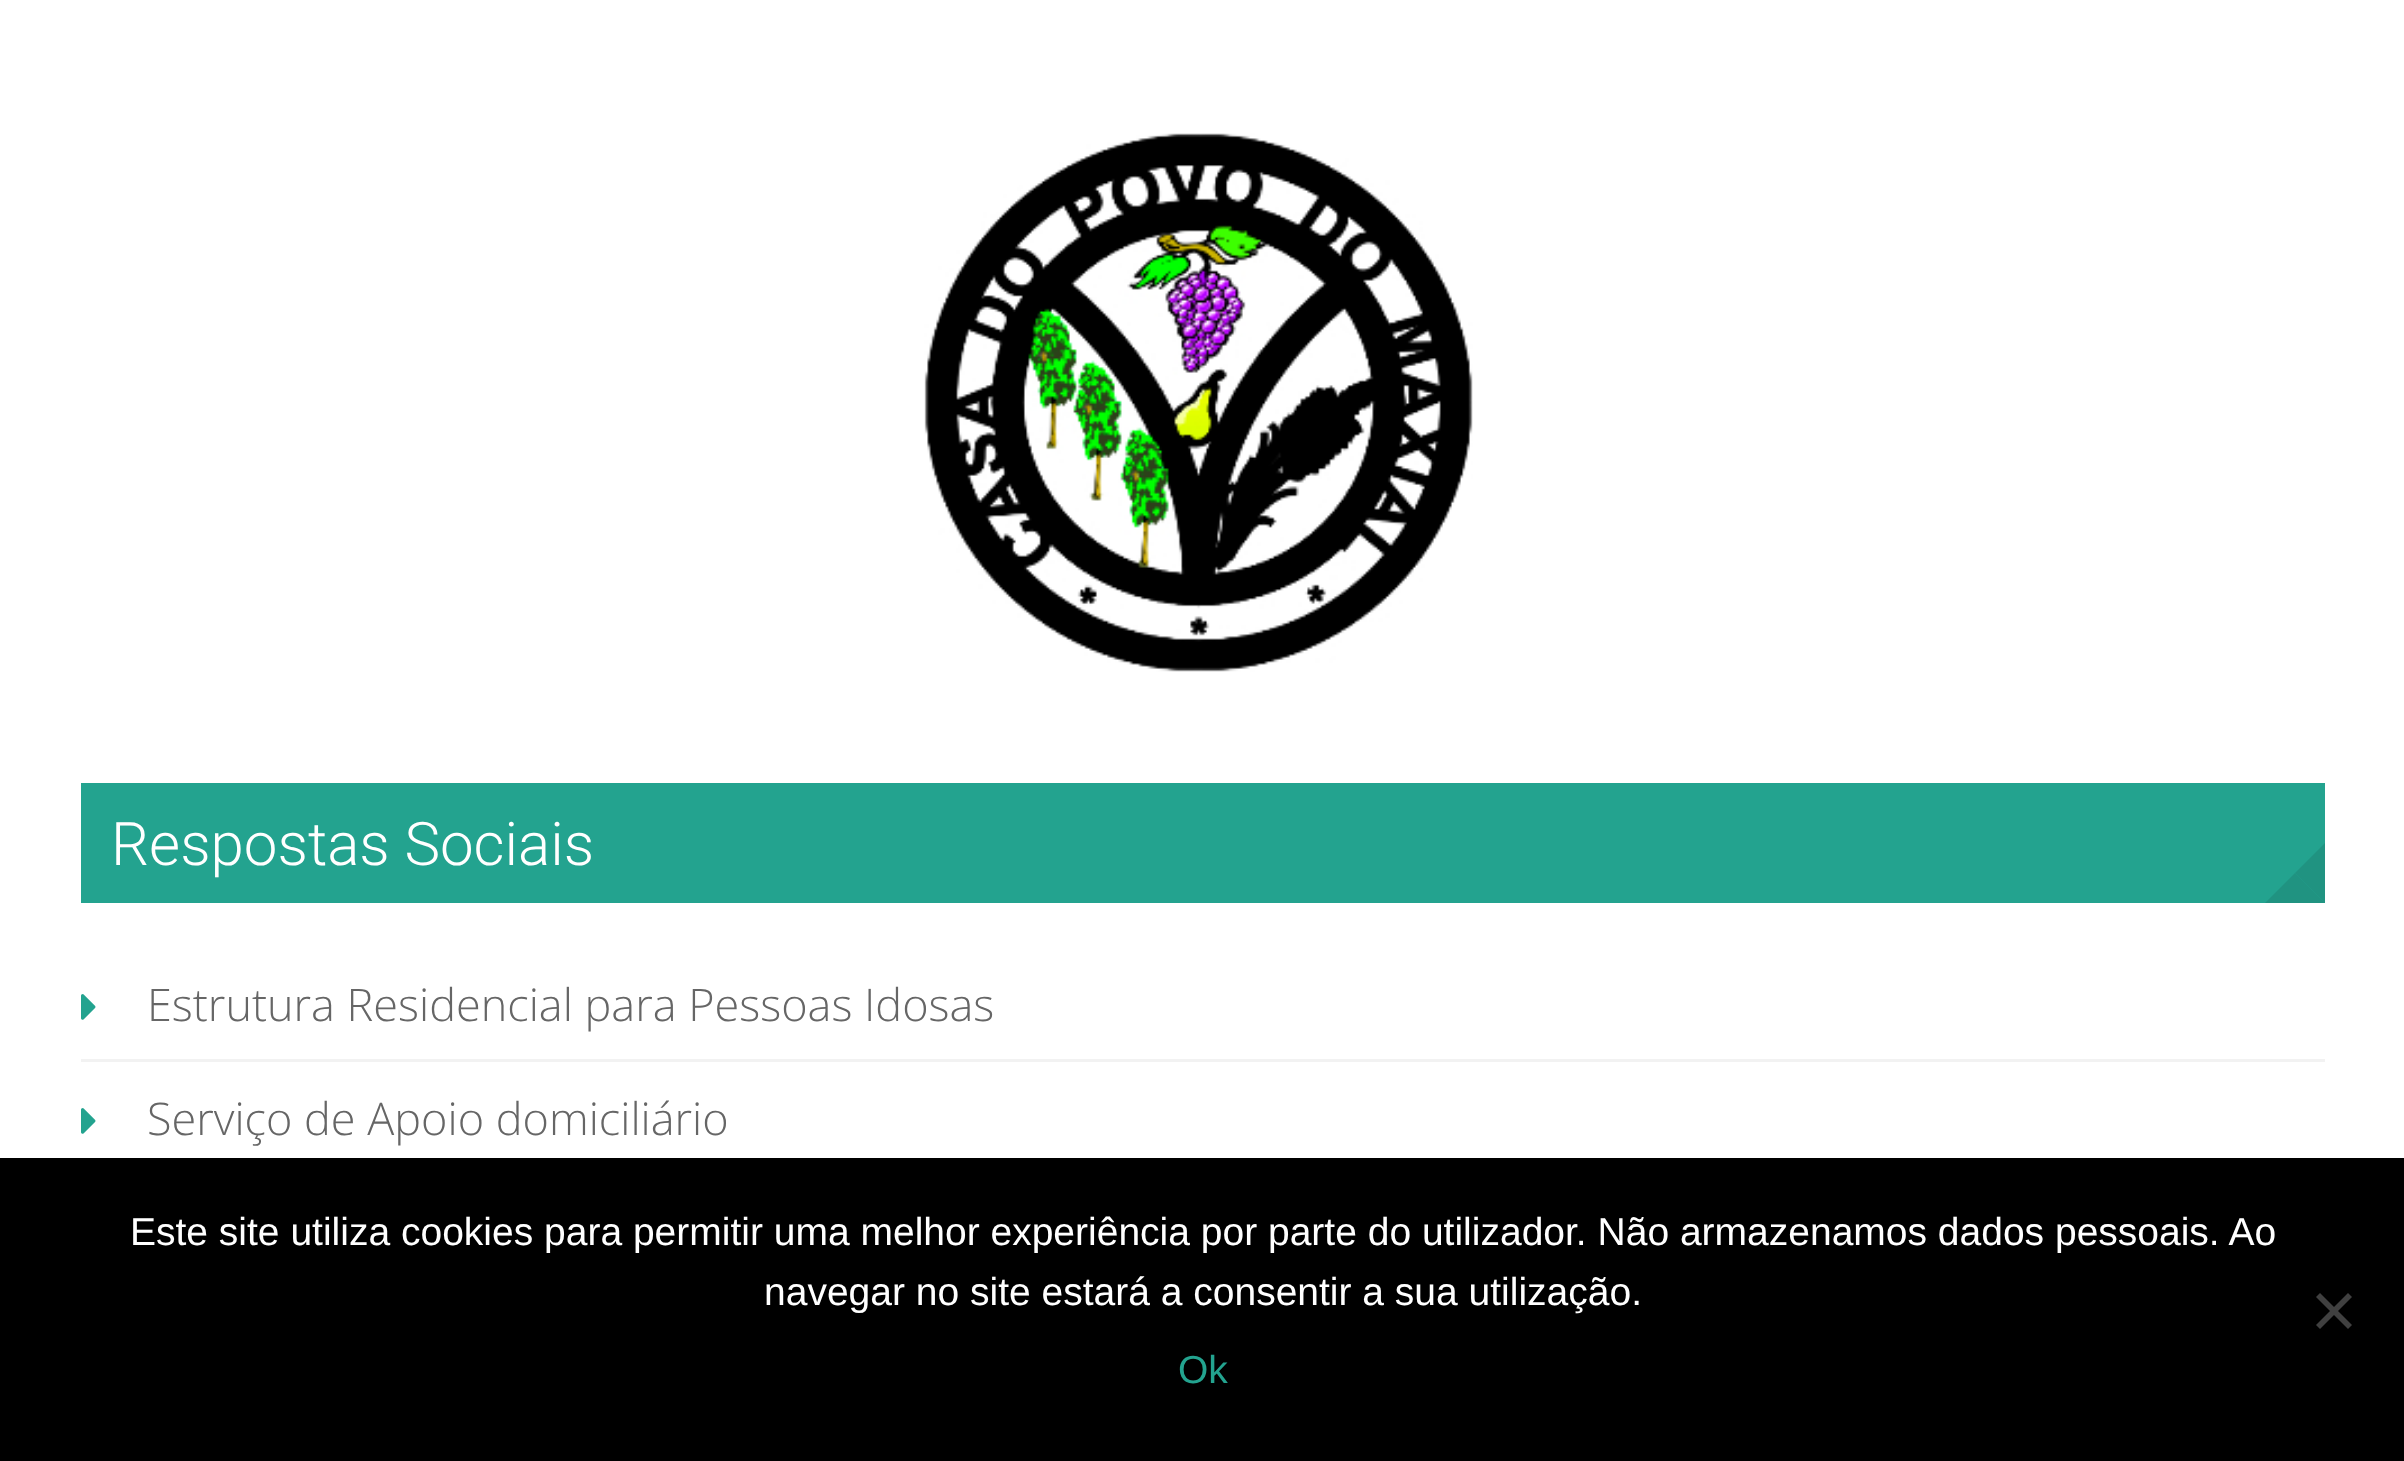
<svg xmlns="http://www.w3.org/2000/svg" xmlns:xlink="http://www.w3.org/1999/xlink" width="2404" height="1461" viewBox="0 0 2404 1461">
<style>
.cls-1{font:300 60px Roboto;fill:#ffffff}
.cls-2{font:300 45px Open Sans;fill:#666666}
.cls-3{font:39px Liberation Sans;fill:#ffffff}
.cls-4{font:39px Liberation Sans;fill:#23a38f}
</style>
<rect width="100%" height="100%" fill="#ffffff"/>
<image xlink:href="image0.png" x="924" y="133" width="549" height="539"/>
<rect fill="#23a38f" x="81" y="783" width="2244" height="120"/>
<path fill="#209381" d="M2325 843V903L2295 873Z"/>
<path fill="#209381" d="M2325 903H2265L2295 873Z"/>
<rect fill="#f2f2f2" x="81" y="1059" width="2244" height="3"/>
<image xlink:href="image1.png" x="81" y="994" width="15" height="26"/>
<image xlink:href="image1.png" x="81" y="1108" width="15" height="26"/>
<rect fill="#000000" x="0" y="1158" width="2404" height="303"/>
<path fill="#404040" d="M2348 1293L2352 1297L2320 1329L2316 1325Z"/>
<path fill="#404040" d="M2316 1297L2320 1293L2352 1325L2348 1329Z"/>
<text class="cls-1" x="111" y="865">Respostas Sociais</text>
<text class="cls-2" x="147" y="1021">Estrutura Residencial para Pessoas Idosas</text>
<text class="cls-2" x="147" y="1135">Serviço de Apoio domiciliário</text>
<text class="cls-3" x="130" y="1245">Este site utiliza cookies para permitir uma melhor experiência por parte do utilizador. Não armazenamos dados pessoais. Ao</text>
<text class="cls-3" x="764" y="1305">navegar no site estará a consentir a sua utilização.</text>
<text class="cls-4" x="1178" y="1383">Ok</text>
</svg>
